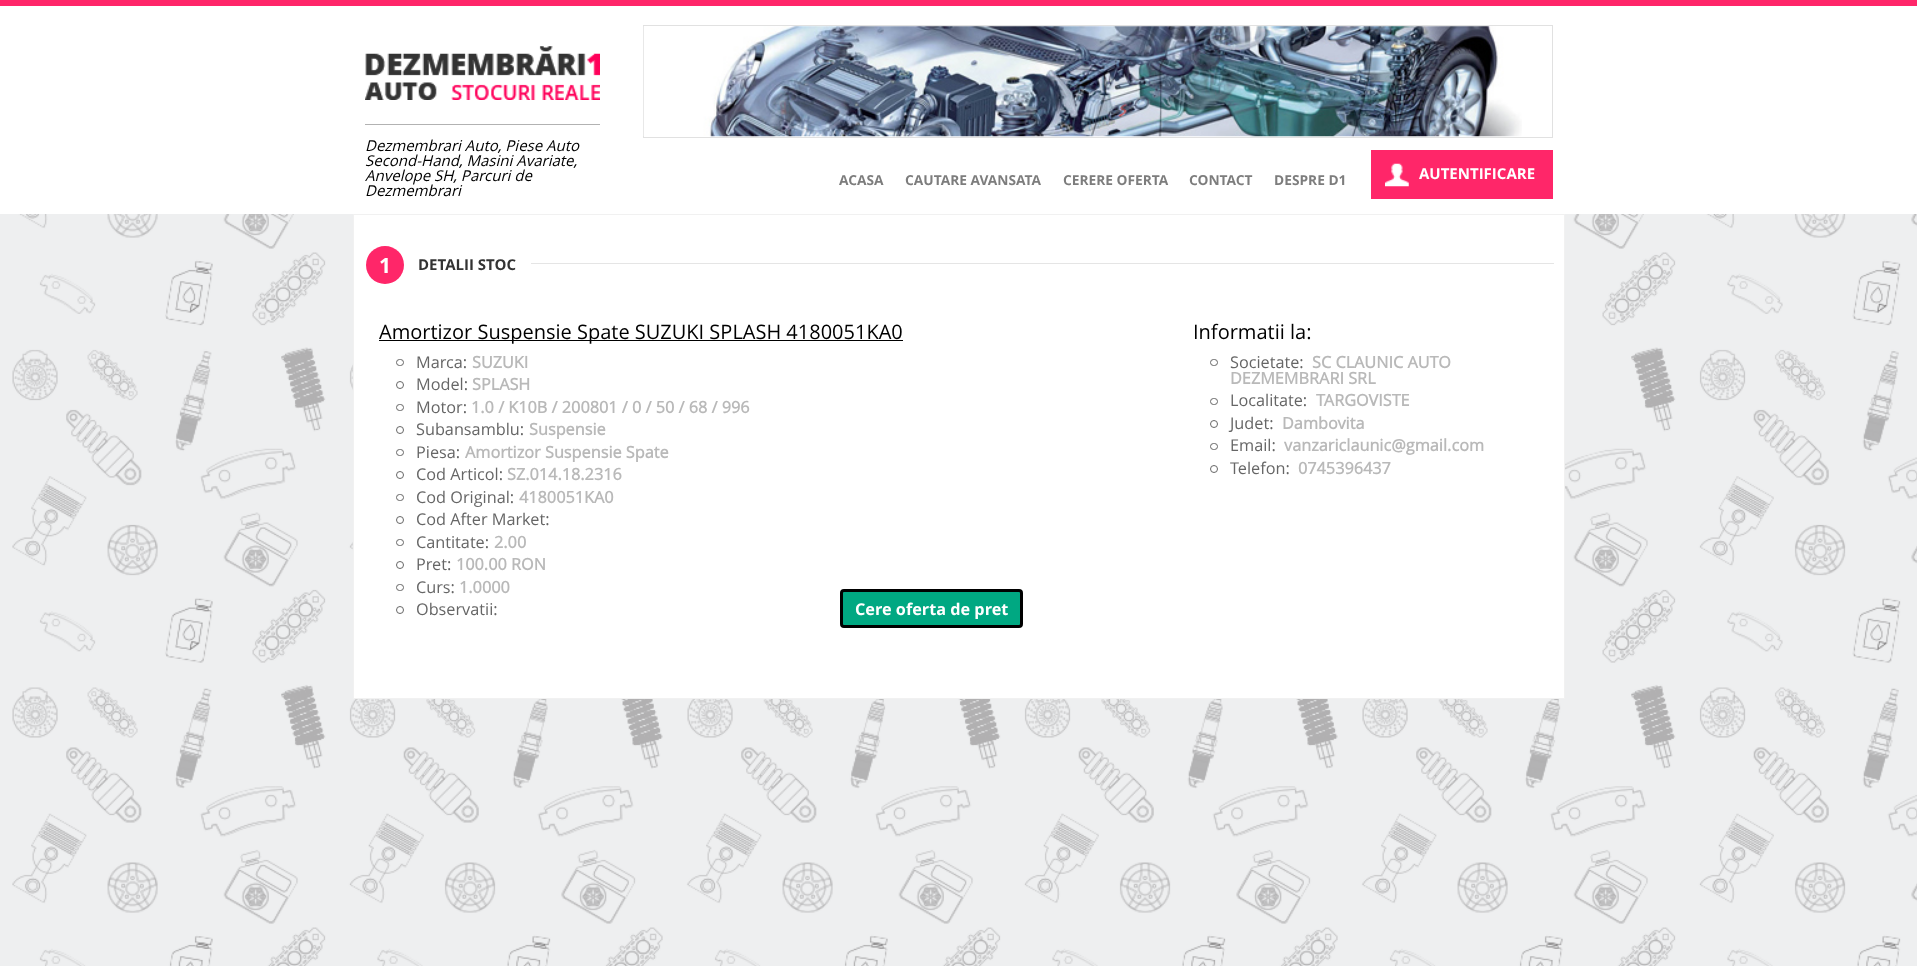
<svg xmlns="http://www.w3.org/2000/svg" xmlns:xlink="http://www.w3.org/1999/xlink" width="1917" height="966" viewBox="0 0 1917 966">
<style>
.cls-1{font:italic 15px Open Sans;fill:#000000}
.cls-2{font:bold 13.75px 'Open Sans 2';fill:#7d7d7d}
.cls-3{font:bold 15px 'Open Sans 2';fill:#ffffff}
.cls-4{font:bold 21px 'Open Sans 2';fill:#ffffff}
.cls-5{font:bold 15px 'Open Sans 2';fill:#333333}
.cls-6{font:20px Open Sans;fill:#000000}
.cls-7{font:16.25px Open Sans;fill:#666666}
.cls-8{font:bold 16.25px Open Sans;fill:#b9b9b9}
.cls-9{font:bold 16.25px 'Open Sans 2';fill:#ffffff}
</style>
<rect width="100%" height="100%" fill="#eeeff0"/>
<image xlink:href="image0.png" x="12" y="214" width="1905" height="752"/>
<rect fill="#ffffff" x="0" y="6" width="1917" height="208"/>
<rect fill="#ff2669" x="0" y="0" width="1917" height="6"/>
<rect fill="#b2b2b2" x="365" y="124" width="235" height="1"/>
<image xlink:href="image1.png" x="365" y="46" width="235" height="54"/>
<rect fill="none" stroke="#e1e1e1" x="643.5" y="25.5" width="909" height="112"/>
<image xlink:href="image2.png" x="643" y="26" width="879" height="111"/>
<rect fill="#ff2669" x="1371" y="150" width="182" height="49"/>
<image xlink:href="image3.png" x="1385" y="163" width="24" height="24"/>
<rect fill="#ffffff" stroke="#f1f1f1" x="353.5" y="214.5" width="1211" height="484"/>
<circle fill="#ff2669" cx="385" cy="265" r="19"/>
<rect fill="#e5e5e5" x="531" y="263" width="1023" height="1"/>
<rect fill="#000000" x="379" y="340" width="524" height="1"/>
<rect fill="none" stroke="#666666" x="396.5" y="359.5" width="7" height="6" rx="3"/>
<circle fill="none" stroke="#666666" cx="400" cy="385" r="3.5"/>
<rect fill="none" stroke="#666666" x="396.5" y="404.5" width="7" height="6" rx="3"/>
<circle fill="none" stroke="#666666" cx="400" cy="430" r="3.5"/>
<rect fill="none" stroke="#666666" x="396.5" y="449.5" width="7" height="6" rx="3"/>
<circle fill="none" stroke="#666666" cx="400" cy="475" r="3.5"/>
<rect fill="none" stroke="#666666" x="396.5" y="494.5" width="7" height="6" rx="3"/>
<circle fill="none" stroke="#666666" cx="400" cy="520" r="3.5"/>
<rect fill="none" stroke="#666666" x="396.5" y="539.5" width="7" height="6" rx="3"/>
<circle fill="none" stroke="#666666" cx="400" cy="565" r="3.5"/>
<rect fill="none" stroke="#666666" x="396.5" y="584.5" width="7" height="6" rx="3"/>
<circle fill="none" stroke="#666666" cx="400" cy="610" r="3.5"/>
<rect fill="#00a882" stroke="#000000" stroke-width="3" x="841.5" y="590.5" width="180" height="36" rx="2.5"/>
<rect fill="none" stroke="#666666" x="1210.5" y="359.5" width="7" height="6" rx="3"/>
<rect fill="none" stroke="#666666" x="1210.5" y="398.5" width="7" height="6" rx="3"/>
<circle fill="none" stroke="#666666" cx="1214" cy="424" r="3.5"/>
<rect fill="none" stroke="#666666" x="1210.5" y="443.5" width="7" height="6" rx="3"/>
<circle fill="none" stroke="#666666" cx="1214" cy="469" r="3.5"/>
<text class="cls-1"><tspan x="365" y="151">Dezmembrari Auto, Piese Auto</tspan><tspan x="365" y="166">Second-Hand, Masini Avariate,</tspan><tspan x="365" y="181">Anvelope SH, Parcuri de</tspan><tspan x="365" y="196">Dezmembrari</tspan></text>
<text class="cls-2" x="839" y="185">ACASA</text>
<text class="cls-2" x="905" y="185">CAUTARE AVANSATA</text>
<text class="cls-2" x="1063" y="185">CERERE OFERTA</text>
<text class="cls-2" x="1189" y="185">CONTACT</text>
<text class="cls-2" x="1274" y="185">DESPRE D1</text>
<text class="cls-3" x="1419" y="179">AUTENTIFICARE</text>
<text class="cls-4" x="379" y="273">1</text>
<text class="cls-5" x="418" y="270">DETALII STOC</text>
<text class="cls-6" x="379" y="339">Amortizor Suspensie Spate SUZUKI SPLASH 4180051KA0</text>
<text class="cls-7" x="416" y="368">Marca:</text>
<text class="cls-8" x="472" y="368">SUZUKI</text>
<text class="cls-7" x="416" y="390">Model:</text>
<text class="cls-8" x="472" y="390">SPLASH</text>
<text class="cls-7" x="416" y="413">Motor:</text>
<text class="cls-8" x="471" y="413">1.0 / K10B / 200801 / 0 / 50 / 68 / 996</text>
<text class="cls-7" x="416" y="435">Subansamblu:</text>
<text class="cls-8" x="529" y="435">Suspensie</text>
<text class="cls-7" x="416" y="458">Piesa:</text>
<text class="cls-8" x="465" y="458">Amortizor Suspensie Spate</text>
<text class="cls-7" x="416" y="480">Cod Articol:</text>
<text class="cls-8" x="507" y="480">SZ.014.18.2316</text>
<text class="cls-7" x="416" y="503">Cod Original:</text>
<text class="cls-8" x="519" y="503">4180051KA0</text>
<text class="cls-7"><tspan x="416" y="525">Cod After Market:</tspan><tspan x="416" y="548">Cantitate:</tspan></text>
<text class="cls-8" x="494" y="548">2.00</text>
<text class="cls-7" x="416" y="570">Pret:</text>
<text class="cls-8" x="456" y="570">100.00 RON</text>
<text class="cls-7" x="416" y="593">Curs:</text>
<text class="cls-8" x="459" y="593">1.0000</text>
<text class="cls-7" x="416" y="615">Observatii:</text>
<text class="cls-9" x="855" y="615">Cere oferta de pret</text>
<text class="cls-6" x="1193" y="339">Informatii la:</text>
<text class="cls-7" x="1230" y="368">Societate:</text>
<text class="cls-8" x="1312" y="368">SC CLAUNIC AUTO</text>
<text class="cls-8" x="1230" y="384">DEZMEMBRARI SRL</text>
<text class="cls-7" x="1230" y="406">Localitate:</text>
<text class="cls-8" x="1316" y="406">TARGOVISTE</text>
<text class="cls-7" x="1230" y="429">Judet:</text>
<text class="cls-8" x="1282" y="429">Dambovita</text>
<text class="cls-7" x="1230" y="451">Email:</text>
<text class="cls-8" x="1284" y="451">vanzariclaunic@gmail.com</text>
<text class="cls-7" x="1230" y="474">Telefon:</text>
<text class="cls-8" x="1298" y="474">0745396437</text>
</svg>
